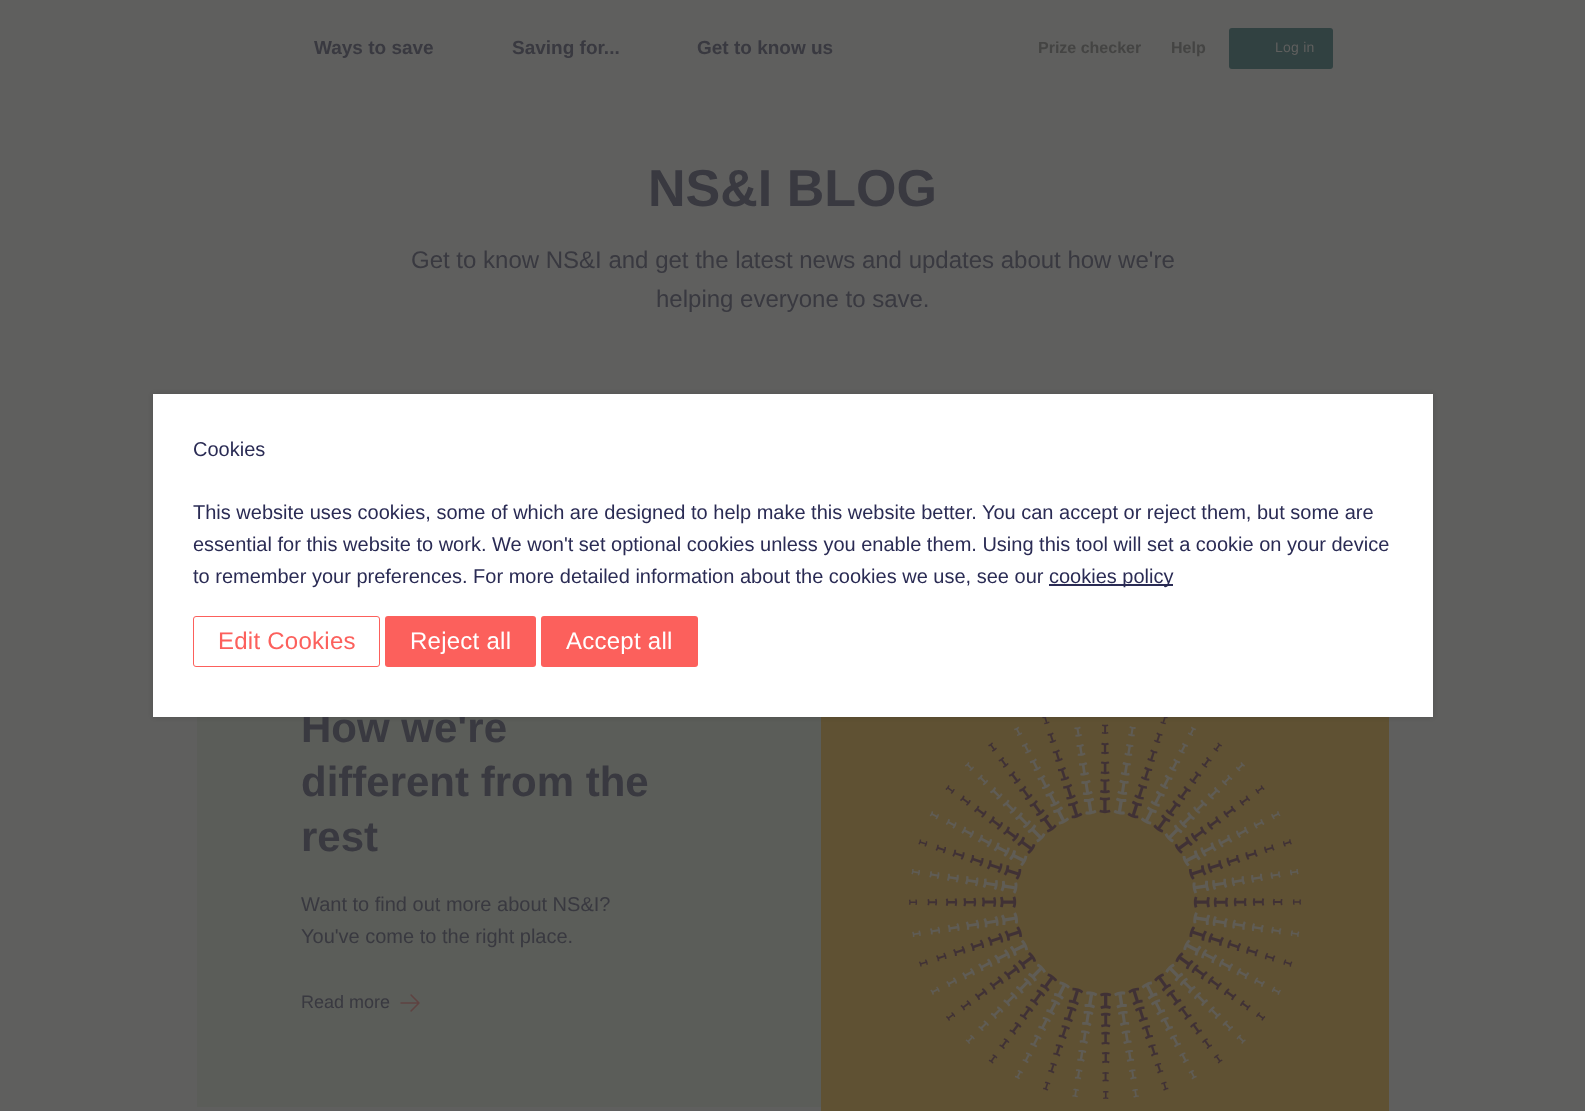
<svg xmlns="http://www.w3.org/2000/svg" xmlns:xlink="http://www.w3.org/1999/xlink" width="1585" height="1111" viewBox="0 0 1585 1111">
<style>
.cls-1{font:bold 19px Liberation Sans;fill:#393940}
.cls-2{font:bold 16px Liberation Sans;fill:#444443}
.cls-3{font:14px Liberation Sans;letter-spacing:0.25px;fill:#5f5f5e}
.cls-4{font:bold 52px Liberation Sans;fill:#393940}
.cls-5{font:24px Liberation Sans;fill:#393940}
.cls-6{font:bold 42px Liberation Sans;fill:#393940}
.cls-7{font:20px Liberation Sans;fill:#393940}
.cls-8{font:18px Liberation Sans;fill:#393940}
.cls-9{font:20px Liberation Sans;fill:#2a2b54}
.cls-10{font:24px Liberation Sans;letter-spacing:0.25px;fill:#fc605c}
.cls-11{font:24px Liberation Sans;letter-spacing:0.25px;fill:#ffffff}
</style>
<rect width="100%" height="100%" fill="#5f5f5e"/>
<rect fill="#314141" x="1229" y="28" width="104" height="41" rx="3"/>
<rect fill="#5b5d59" x="197" y="717" width="624" height="390"/>
<image xlink:href="image0.png" x="400" y="994" width="20" height="18"/>
<image xlink:href="image1.png" x="821" y="717" width="568" height="394"/>
<rect fill="#000000" fill-opacity="0.14" filter="blur(2.5px)" x="153" y="394" width="1280" height="323"/>
<text class="cls-1" x="314" y="54">Ways to save</text>
<text class="cls-1" x="512" y="54">Saving for...</text>
<text class="cls-1" x="697" y="54">Get to know us</text>
<text class="cls-2" x="1038" y="53">Prize checker</text>
<text class="cls-2" x="1171" y="53">Help</text>
<text class="cls-3" x="1275" y="52">Log in</text>
<text class="cls-4" x="648" y="206">NS&amp;I BLOG</text>
<text class="cls-5" x="411" y="268">Get to know NS&amp;I and get the latest news and updates about how we're</text>
<text class="cls-5" x="656" y="307">helping everyone to save.</text>
<text class="cls-6"><tspan x="301" y="742">How we're</tspan><tspan x="301" y="796">different from the</tspan><tspan x="301" y="851">rest</tspan></text>
<text class="cls-7"><tspan x="301" y="911">Want to find out more about NS&amp;I?</tspan><tspan x="301" y="943">You've come to the right place.</tspan></text>
<text class="cls-8" x="301" y="1008">Read more</text>
<rect fill="#ffffff" x="153" y="394" width="1280" height="323"/>
<text class="cls-9" x="193" y="456">Cookies</text>
<text class="cls-9"><tspan x="193" y="519">This website uses cookies, some of which are designed to help make this website better. You can accept or reject them, but some are</tspan><tspan x="193" y="551">essential for this website to work. We won't set optional cookies unless you enable them. Using this tool will set a cookie on your device</tspan><tspan x="193" y="583">to remember your preferences. For more detailed information about the cookies we use, see our</tspan></text>
<rect fill="#2a2b54" x="1049" y="584" width="124" height="2"/>
<text class="cls-9" x="1049" y="583">cookies policy</text>
<rect fill="none" stroke="#fc605c" x="193.5" y="616.5" width="186" height="50" rx="2.5"/>
<text class="cls-10" x="218" y="649">Edit Cookies</text>
<rect fill="#fc605c" x="385" y="616" width="151" height="51" rx="3"/>
<text class="cls-11" x="410" y="649">Reject all</text>
<rect fill="#fc605c" x="541" y="616" width="157" height="51" rx="3"/>
<text class="cls-11" x="566" y="649">Accept all</text>
</svg>
